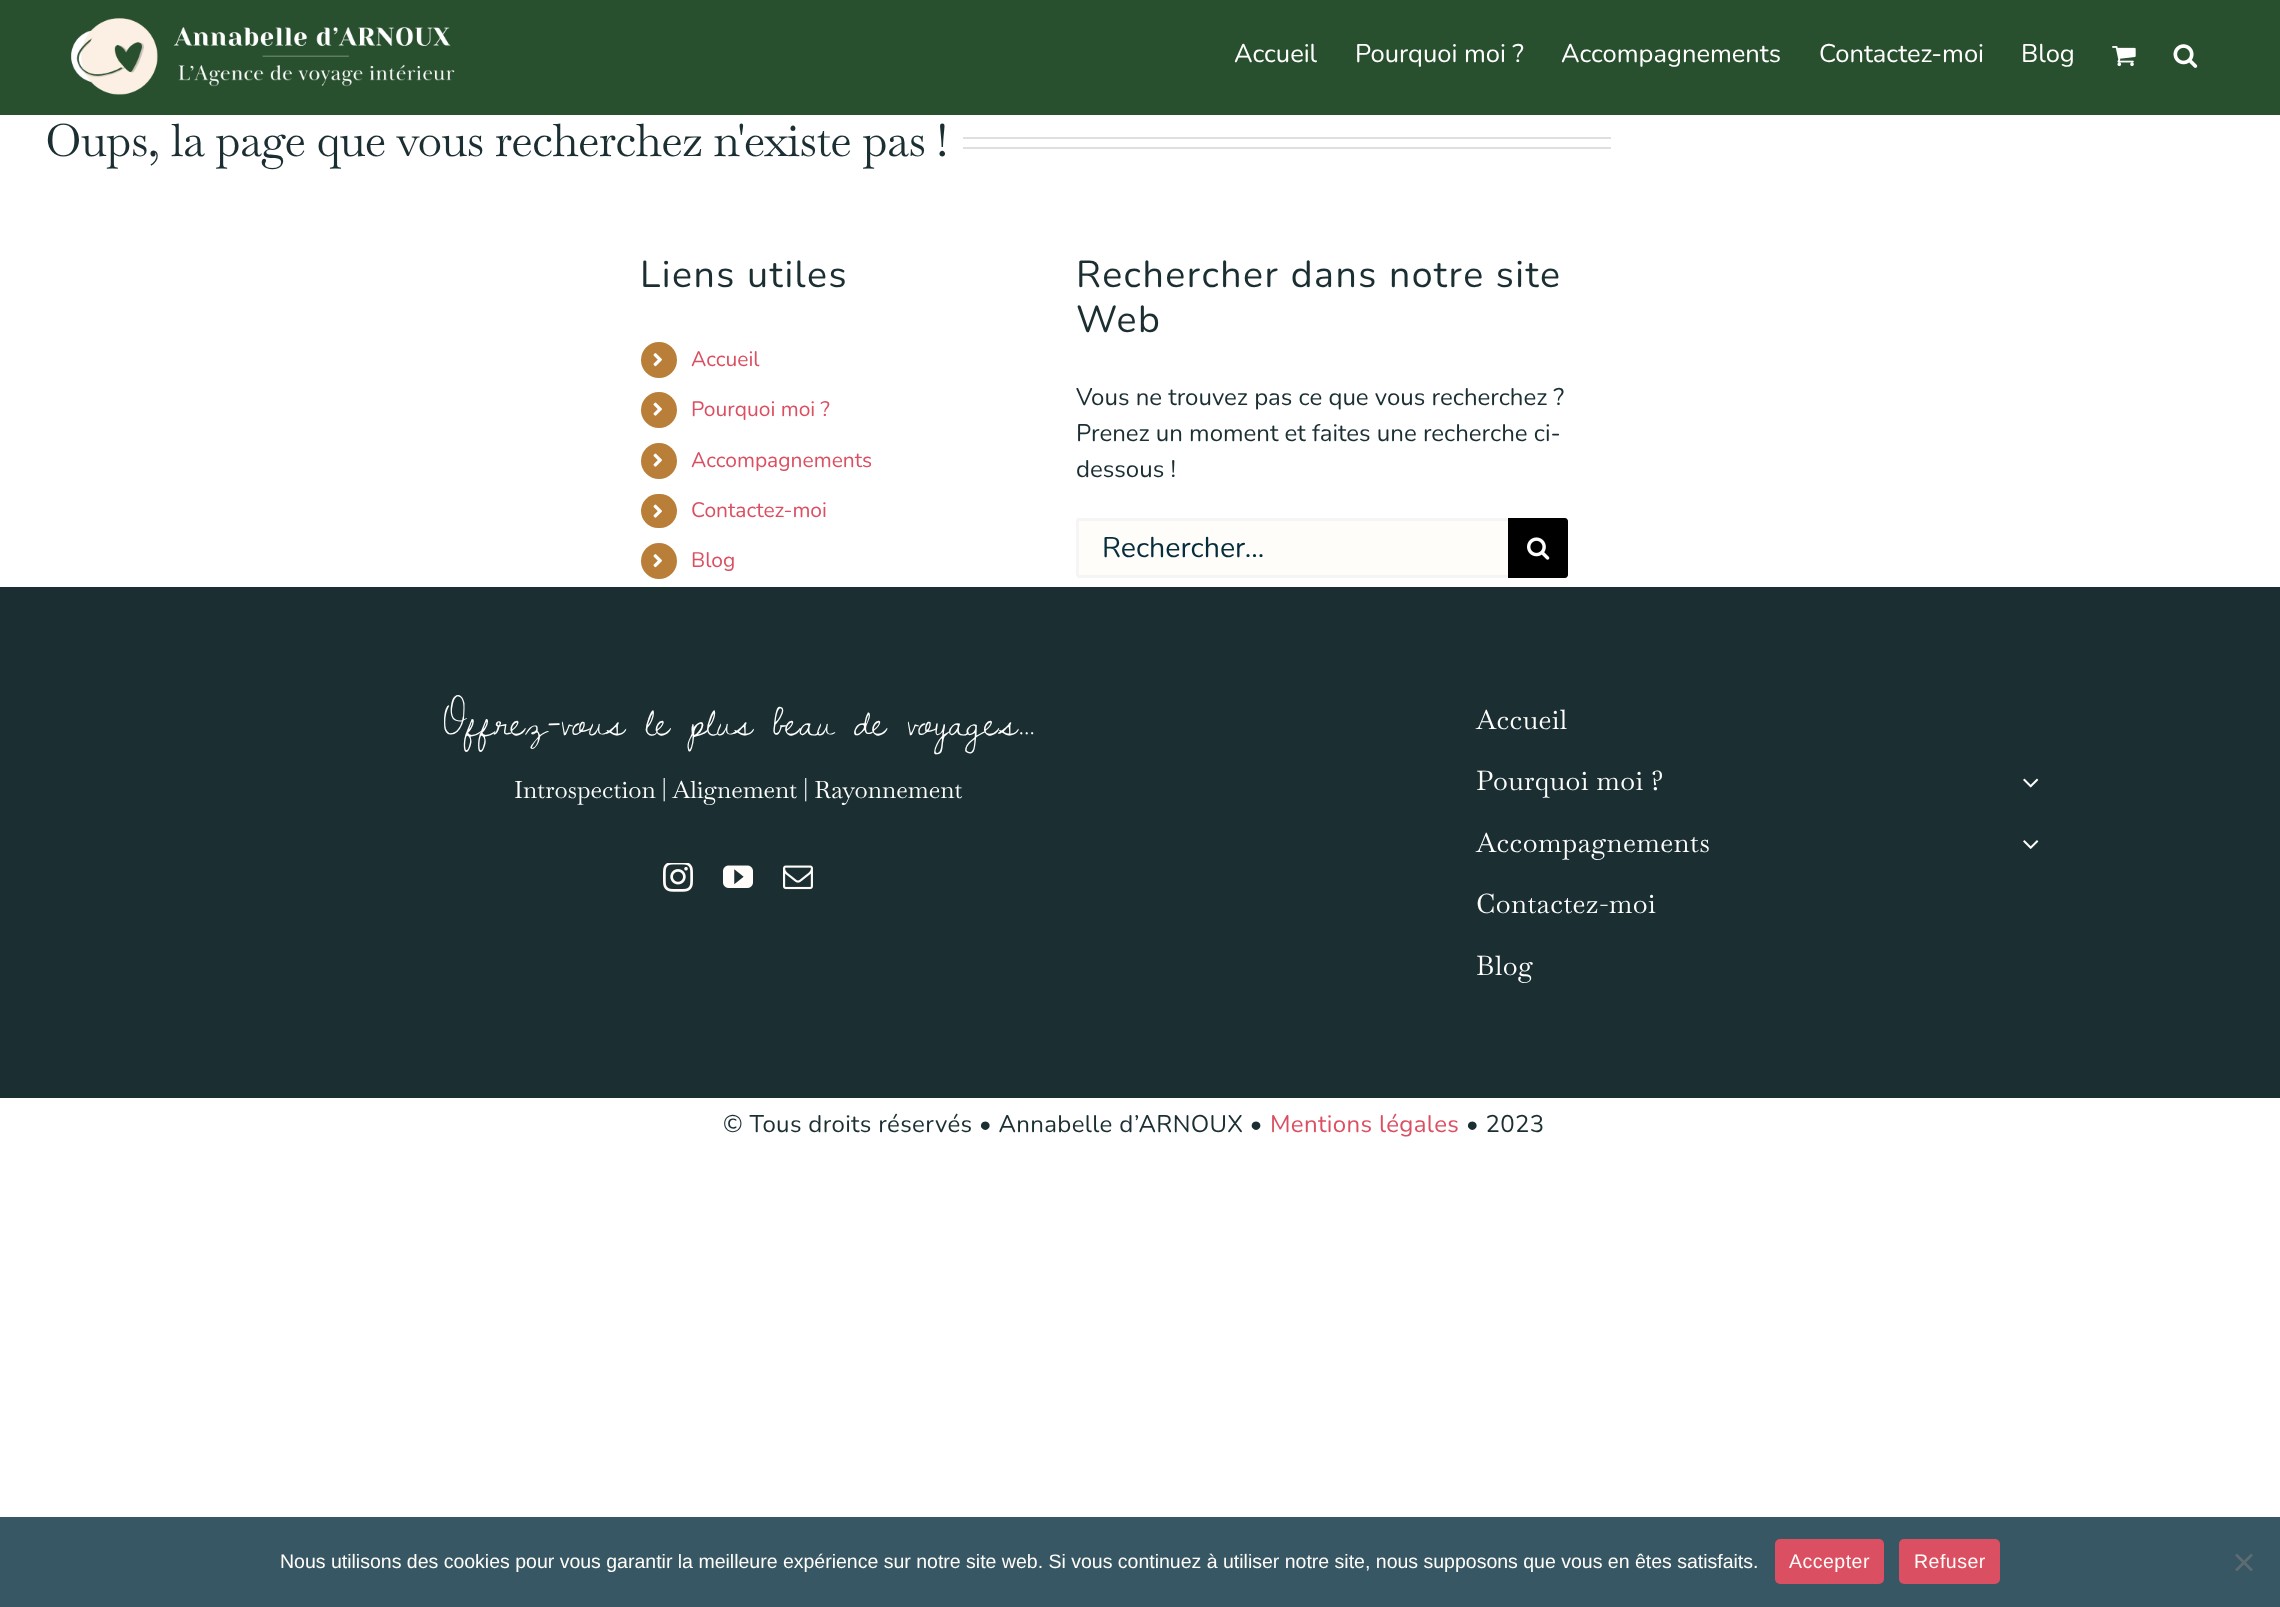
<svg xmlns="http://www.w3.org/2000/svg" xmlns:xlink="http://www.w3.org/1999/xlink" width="2280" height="1607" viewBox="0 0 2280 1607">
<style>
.cls-1{font:25.5px Nunito;fill:#ffffff}
.cls-2{font:45px Baskervville;letter-spacing:-0.7px;fill:#1b2f33}
.cls-3{font:37.5px Nunito;letter-spacing:1.5px;fill:#1b2f33}
.cls-4{font:21px Nunito;fill:#db4f62}
.cls-5{font:24px Nunito;fill:#1b2f33}
.cls-6{font:28.5px Nunito;fill:#052d3d}
.cls-7{font:45px Dawning of a New Day;fill:#ffffff}
.cls-8{font:24px Baskervville;fill:#ffffff}
.cls-9{font:27px Baskervville;letter-spacing:0.4px;fill:#ffffff}
.cls-10{font:24px Nunito;letter-spacing:0.35px;fill:#1b2f33}
.cls-11{font:24px Nunito;letter-spacing:0.35px;fill:#db4f62}
.cls-12{font:19.5px Liberation Sans;fill:#fffdf9}
.cls-13{font:19.5px Liberation Sans;letter-spacing:0.5px;fill:#fffdf9}
</style>
<defs>
<clipPath id="clip1"><rect x="1076" y="518" width="492" height="60" rx="3"/></clipPath>
</defs>
<rect width="100%" height="100%" fill="#ffffff"/>
<rect fill="#28502e" x="0" y="0" width="2280" height="115"/>
<image xlink:href="image0.png" x="71" y="18" width="384" height="77"/>
<image xlink:href="image1.png" x="2112" y="46" width="24" height="21"/>
<image xlink:href="image2.png" x="2173" y="44" width="25" height="24"/>
<rect fill="#e0dede" x="963" y="137" width="648" height="2"/>
<rect fill="#e0dede" x="963" y="147" width="648" height="2"/>
<circle fill="#b97e38" cx="659" cy="360" r="18"/>
<image xlink:href="image3.png" x="653" y="353" width="9" height="14"/>
<circle fill="#b97e38" cx="659" cy="410" r="18"/>
<image xlink:href="image4.png" x="653" y="402" width="9" height="14"/>
<circle fill="#b97e38" cx="659" cy="461" r="18"/>
<image xlink:href="image4.png" x="653" y="453" width="9" height="14"/>
<rect fill="#b97e38" x="641" y="494" width="36" height="34" rx="17"/>
<image xlink:href="image4.png" x="653" y="504" width="9" height="14"/>
<circle fill="#b97e38" cx="659" cy="561" r="18"/>
<image xlink:href="image3.png" x="653" y="554" width="9" height="14"/>
<path fill="#fffdf9" d="M1079 518H1508V578H1079C1077.5 578 1076 576.5 1076 575V521C1076 519.5 1077.5 518 1079 518Z"/>
<rect fill="#f5f5f5" x="1077" y="518" width="431" height="3"/>
<rect fill="#f5f5f5" x="1077" y="575" width="431" height="3"/>
<g clip-path="url(#clip1)">
<rect fill="#f5f5f5" x="1076" y="519" width="3" height="57"/>
</g>
<path fill="#000000" d="M1508 518H1565C1566.5 518 1568 519.5 1568 521V575C1568 576.5 1566.5 578 1565 578H1508Z"/>
<image xlink:href="image5.png" x="1527" y="537" width="23" height="23"/>
<rect fill="#1b2f33" x="0" y="587" width="2280" height="511"/>
<image xlink:href="image6.png" x="663" y="863" width="30" height="29"/>
<image xlink:href="image7.png" x="723" y="865" width="30" height="23"/>
<image xlink:href="image8.png" x="783" y="865" width="30" height="25"/>
<image xlink:href="image9.png" x="2023" y="778" width="16" height="10"/>
<image xlink:href="image10.png" x="2023" y="840" width="16" height="9"/>
<rect fill="#375764" x="0" y="1517" width="2280" height="90"/>
<rect fill="#db4f62" x="1775" y="1539" width="109" height="45" rx="5"/>
<rect fill="#db4f62" x="1899" y="1539" width="101" height="45" rx="5"/>
<path fill="#5c6c72" d="M2251 1553.5L2253 1555.5L2237 1571.5L2235 1569.5Z"/>
<path fill="#5c6c72" d="M2235 1555.5L2237 1553.5L2253 1569.5L2251 1571.5Z"/>
<text class="cls-1" x="1234" y="62">Accueil</text>
<text class="cls-1" x="1355" y="62">Pourquoi moi ?</text>
<text class="cls-1" x="1561" y="62">Accompagnements</text>
<text class="cls-1" x="1819" y="62">Contactez-moi</text>
<text class="cls-1" x="2021" y="62">Blog</text>
<text class="cls-2" x="45" y="156">Oups, la page que vous recherchez n'existe pas !</text>
<text class="cls-3" x="640" y="287">Liens utiles</text>
<text class="cls-4" x="691" y="366">Accueil</text>
<text class="cls-4" x="691" y="416">Pourquoi moi ?</text>
<text class="cls-4" x="691" y="467">Accompagnements</text>
<text class="cls-4" x="691" y="517">Contactez-moi</text>
<text class="cls-4" x="691" y="567">Blog</text>
<text class="cls-3"><tspan x="1076" y="287">Rechercher dans notre site</tspan><tspan x="1076" y="332">Web</tspan></text>
<text class="cls-5"><tspan x="1076" y="405">Vous ne trouvez pas ce que vous recherchez ?</tspan><tspan x="1076" y="441">Prenez un moment et faites une recherche ci-</tspan><tspan x="1076" y="477">dessous !</tspan></text>
<text class="cls-6" x="1102" y="557">Rechercher...</text>
<text class="cls-7" x="443" y="735">Offrez-vous le plus beau de voyages…</text>
<text class="cls-8" x="514" y="798">Introspection | Alignement | Rayonnement</text>
<text class="cls-9" x="1476" y="729">Accueil</text>
<text class="cls-9" x="1476" y="790">Pourquoi moi ?</text>
<text class="cls-9" x="1476" y="852">Accompagnements</text>
<text class="cls-9" x="1476" y="913">Contactez-moi</text>
<text class="cls-9" x="1476" y="975">Blog</text>
<text class="cls-10" x="723" y="1132">© Tous droits réservés • Annabelle d’ARNOUX •</text>
<text class="cls-11" x="1270" y="1132">Mentions légales</text>
<text class="cls-10" x="1466" y="1132">• 2023</text>
<text class="cls-12" x="280" y="1568">Nous utilisons des cookies pour vous garantir la meilleure expérience sur notre site web. Si vous continuez à utiliser notre site, nous supposons que vous en êtes satisfaits.</text>
<text class="cls-13" x="1789" y="1568">Accepter</text>
<text class="cls-13" x="1914" y="1568">Refuser</text>
</svg>
